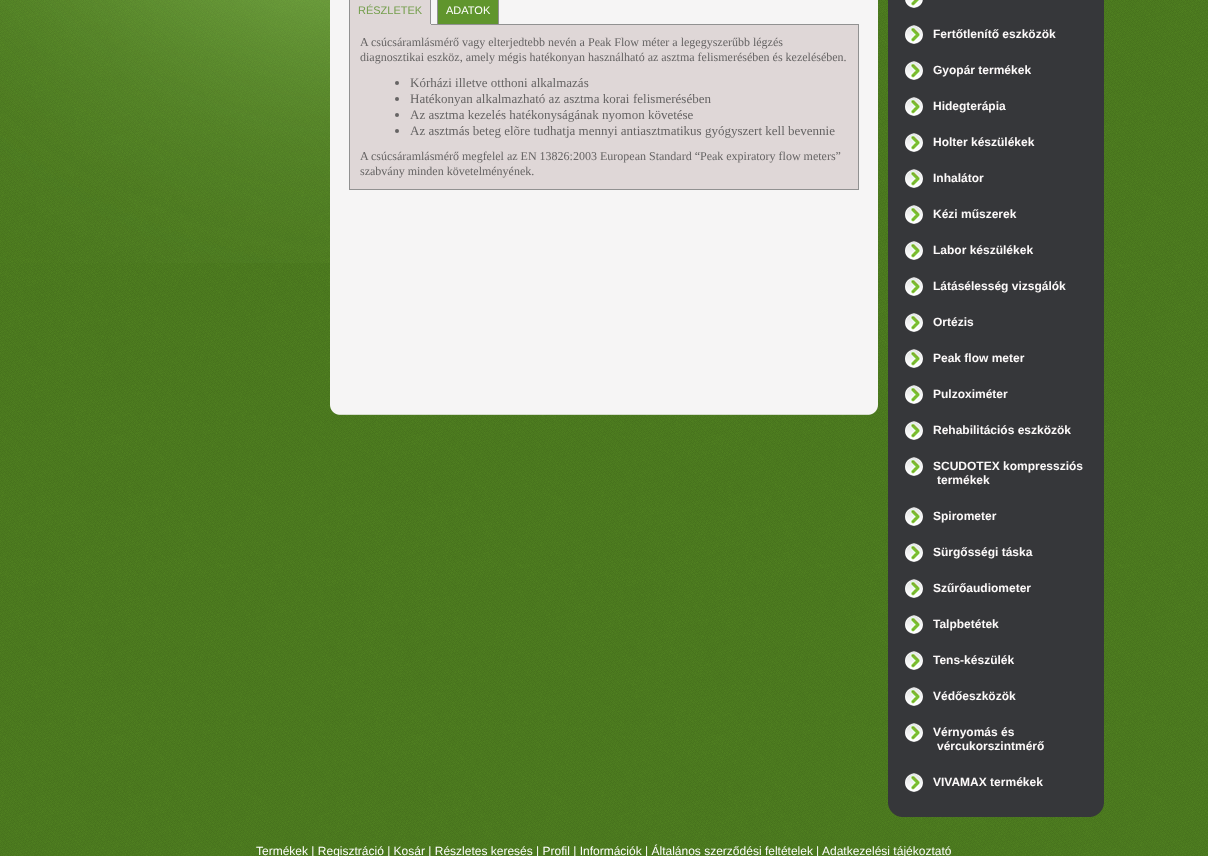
<svg xmlns="http://www.w3.org/2000/svg" xmlns:xlink="http://www.w3.org/1999/xlink" width="1208" height="856" viewBox="0 0 1208 856">
<style>
.cls-1{font:11px Liberation Sans;fill:#749e4c}
.cls-2{font:11px Liberation Sans;fill:#ffffff}
.cls-3{font:12px Liberation Serif;fill:#666464}
.cls-4{font:13px Liberation Serif;fill:#666464}
.cls-5{font:bold 12px Liberation Sans;fill:#fcf9f9}
.cls-6{font:12px Liberation Sans;fill:#ffffff}
</style>
<rect width="100%" height="100%" fill="#ffffff"/>
<image xlink:href="image0.png" x="0" y="0" width="1208" height="856"/>
<image xlink:href="image1.png" x="0" y="0" width="330" height="263"/>
<rect fill="#f6f5f5" x="330" y="0" width="548" height="400"/>
<rect fill="#dfd7d7" x="350" y="0" width="80" height="24"/>
<rect fill="#dfd7d7" stroke="#919191" x="349.5" y="24.5" width="509" height="165"/>
<rect fill="#919191" x="430" y="0" width="1" height="25"/>
<rect fill="#dfd7d7" x="349" y="24" width="82" height="1"/>
<rect fill="#919191" x="349" y="0" width="1" height="25"/>
<rect fill="#60952d" stroke="#919191" x="437.5" y="-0.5" width="61" height="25"/>
<circle fill="#666464" cx="397" cy="83" r="2"/>
<circle fill="#666464" cx="397" cy="99" r="2"/>
<circle fill="#666464" cx="397" cy="115" r="2"/>
<circle fill="#666464" cx="397" cy="131" r="2"/>
<image xlink:href="image2.png" x="330" y="400" width="548" height="15"/>
<rect fill="#36373a" x="888" y="0" width="216" height="800"/>
<image xlink:href="image3.png" x="905" y="0" width="18" height="8"/>
<image xlink:href="image4.png" x="905" y="25" width="18" height="19"/>
<image xlink:href="image4.png" x="905" y="61" width="18" height="19"/>
<image xlink:href="image4.png" x="905" y="97" width="18" height="19"/>
<image xlink:href="image4.png" x="905" y="133" width="18" height="19"/>
<image xlink:href="image4.png" x="905" y="169" width="18" height="19"/>
<image xlink:href="image4.png" x="905" y="205" width="18" height="19"/>
<image xlink:href="image4.png" x="905" y="241" width="18" height="19"/>
<image xlink:href="image4.png" x="905" y="277" width="18" height="19"/>
<image xlink:href="image4.png" x="905" y="313" width="18" height="19"/>
<image xlink:href="image4.png" x="905" y="349" width="18" height="19"/>
<image xlink:href="image4.png" x="905" y="385" width="18" height="19"/>
<image xlink:href="image4.png" x="905" y="421" width="18" height="19"/>
<image xlink:href="image4.png" x="905" y="457" width="18" height="19"/>
<image xlink:href="image4.png" x="905" y="507" width="18" height="19"/>
<image xlink:href="image4.png" x="905" y="543" width="18" height="19"/>
<image xlink:href="image4.png" x="905" y="579" width="18" height="19"/>
<image xlink:href="image4.png" x="905" y="615" width="18" height="19"/>
<image xlink:href="image4.png" x="905" y="651" width="18" height="19"/>
<image xlink:href="image4.png" x="905" y="687" width="18" height="19"/>
<image xlink:href="image4.png" x="905" y="723" width="18" height="19"/>
<image xlink:href="image4.png" x="905" y="773" width="18" height="19"/>
<image xlink:href="image5.png" x="888" y="800" width="216" height="17"/>
<text class="cls-1" x="358" y="14">RÉSZLETEK</text>
<text class="cls-2" x="446" y="14">ADATOK</text>
<text class="cls-3" x="360" y="46">A csúcsáramlásmérő vagy elterjedtebb nevén a</text>
<text class="cls-3" x="588" y="46">Peak Flow méter a legegyszerűbb légzés</text>
<text class="cls-3" x="360" y="61">diagnosztikai eszköz, amely mégis hatékonyan</text>
<text class="cls-3" x="588" y="61">használható az asztma felismerésében és kezelésében.</text>
<text class="cls-4"><tspan x="410" y="87">Kórházi illetve otthoni alkalmazás</tspan><tspan x="410" y="103">Hatékonyan alkalmazható az asztma korai</tspan></text>
<text class="cls-4" x="633" y="103">felismerésében</text>
<text class="cls-4"><tspan x="410" y="119">Az asztma kezelés hatékonyságának nyomon követése</tspan><tspan x="410" y="135">Az asztmás beteg elõre tudhatja mennyi antiasztmatikus</tspan></text>
<text class="cls-4" x="705" y="135">gyógyszert kell bevennie</text>
<text class="cls-3" x="360" y="160">A csúcsáramlásmérő megfelel az EN 13826:2003</text>
<text class="cls-3" x="600" y="160">European Standard “Peak expiratory flow meters”</text>
<text class="cls-3" x="360" y="175">szabvány minden követelményének.</text>
<text class="cls-5" x="933" y="38">Fertőtlenítő eszközök</text>
<text class="cls-5" x="933" y="74">Gyopár termékek</text>
<text class="cls-5" x="933" y="110">Hidegterápia</text>
<text class="cls-5" x="933" y="146">Holter készülékek</text>
<text class="cls-5" x="933" y="182">Inhalátor</text>
<text class="cls-5" x="933" y="218">Kézi műszerek</text>
<text class="cls-5" x="933" y="254">Labor készülékek</text>
<text class="cls-5" x="933" y="290">Látásélesség vizsgálók</text>
<text class="cls-5" x="933" y="326">Ortézis</text>
<text class="cls-5" x="933" y="362">Peak flow meter</text>
<text class="cls-5" x="933" y="398">Pulzoximéter</text>
<text class="cls-5" x="933" y="434">Rehabilitációs eszközök</text>
<text class="cls-5" x="933" y="470">SCUDOTEX kompressziós</text>
<text class="cls-5" x="937" y="484">termékek</text>
<text class="cls-5" x="933" y="520">Spirometer</text>
<text class="cls-5" x="933" y="556">Sürgősségi táska</text>
<text class="cls-5" x="933" y="592">Szűrőaudiometer</text>
<text class="cls-5" x="933" y="628">Talpbetétek</text>
<text class="cls-5" x="933" y="664">Tens-készülék</text>
<text class="cls-5" x="933" y="700">Védőeszközök</text>
<text class="cls-5" x="933" y="736">Vérnyomás és</text>
<text class="cls-5" x="937" y="750">vércukorszintmérő</text>
<text class="cls-5" x="933" y="786">VIVAMAX termékek</text>
<text class="cls-6" x="256" y="855">Termékek | Regisztráció | Kosár | Részletes keresés | Profil | Információk | Általános szerződési feltételek</text>
<text class="cls-6" x="816" y="855">|</text>
<text class="cls-6" x="822" y="855">Adatkezelési tájékoztató</text>
</svg>
